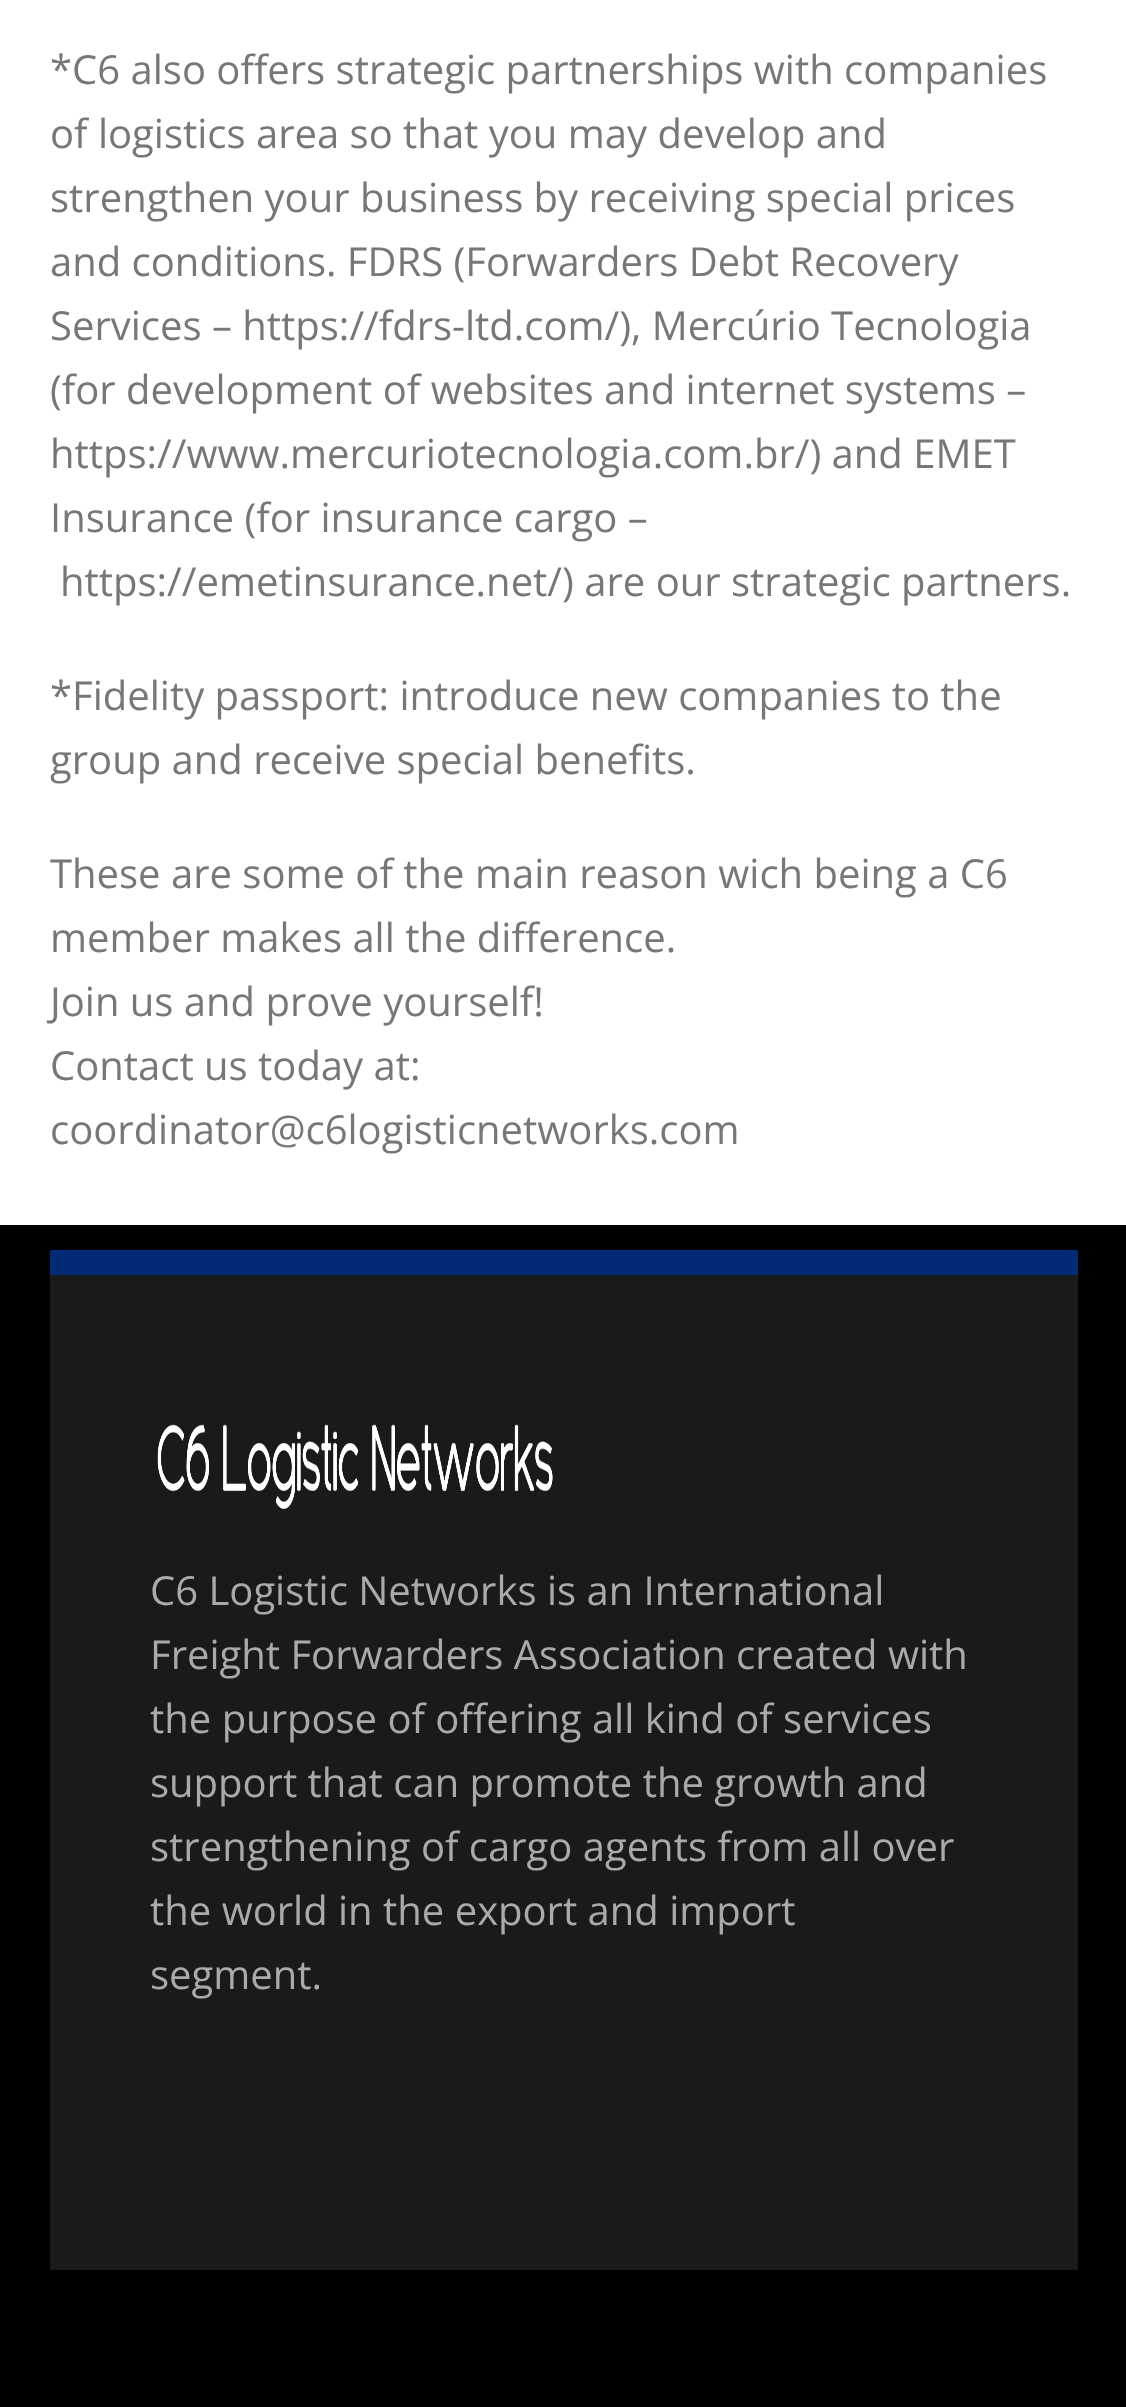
<svg xmlns="http://www.w3.org/2000/svg" xmlns:xlink="http://www.w3.org/1999/xlink" width="1126" height="2407" viewBox="0 0 1126 2407">
<style>
.cls-1{font:40px Open Sans;fill:#777777}
.cls-2{font:40px Open Sans;fill:#aaaaaa}
</style>
<rect width="100%" height="100%" fill="#ffffff"/>
<rect fill="#000000" x="0" y="1225" width="1126" height="1182"/>
<rect fill="#1a1a1a" x="50" y="1275" width="1028" height="995"/>
<rect fill="#022a75" x="50" y="1250" width="1028" height="25"/>
<image xlink:href="image0.png" x="157" y="1424" width="396" height="86"/>
<text class="cls-1"><tspan x="50" y="84">*C6 also offers strategic partnerships with companies</tspan><tspan x="50" y="148">of logistics area so that you may develop and</tspan><tspan x="50" y="212">strengthen your business by receiving special prices</tspan><tspan x="50" y="276">and conditions. FDRS (Forwarders Debt Recovery</tspan><tspan x="50" y="340">Services – https://fdrs-ltd.com/), Mercúrio Tecnologia</tspan><tspan x="50" y="404">(for development of websites and internet systems –</tspan><tspan x="50" y="468">https://www.mercuriotecnologia.com.br/) and EMET</tspan><tspan x="50" y="532">Insurance (for insurance cargo –</tspan></text>
<text class="cls-1" x="60" y="596">https://emetinsurance.net/) are our strategic partners.</text>
<text class="cls-1"><tspan x="50" y="710">*Fidelity passport: introduce new companies to the</tspan><tspan x="50" y="774">group and receive special benefits.</tspan></text>
<text class="cls-1"><tspan x="50" y="888">These are some of the main reason wich being a C6</tspan><tspan x="50" y="952">member makes all the difference.</tspan><tspan x="50" y="1016">Join us and prove yourself!</tspan><tspan x="50" y="1080">Contact us today at:</tspan><tspan x="50" y="1144">coordinator@c6logisticnetworks.com</tspan></text>
<text class="cls-2"><tspan x="150" y="1605">C6 Logistic Networks is an International</tspan><tspan x="150" y="1669">Freight Forwarders Association created with</tspan><tspan x="150" y="1733">the purpose of offering all kind of services</tspan><tspan x="150" y="1797">support that can promote the growth and</tspan><tspan x="150" y="1861">strengthening of cargo agents from all over</tspan><tspan x="150" y="1925">the world in the export and import</tspan><tspan x="150" y="1989">segment.</tspan></text>
</svg>
